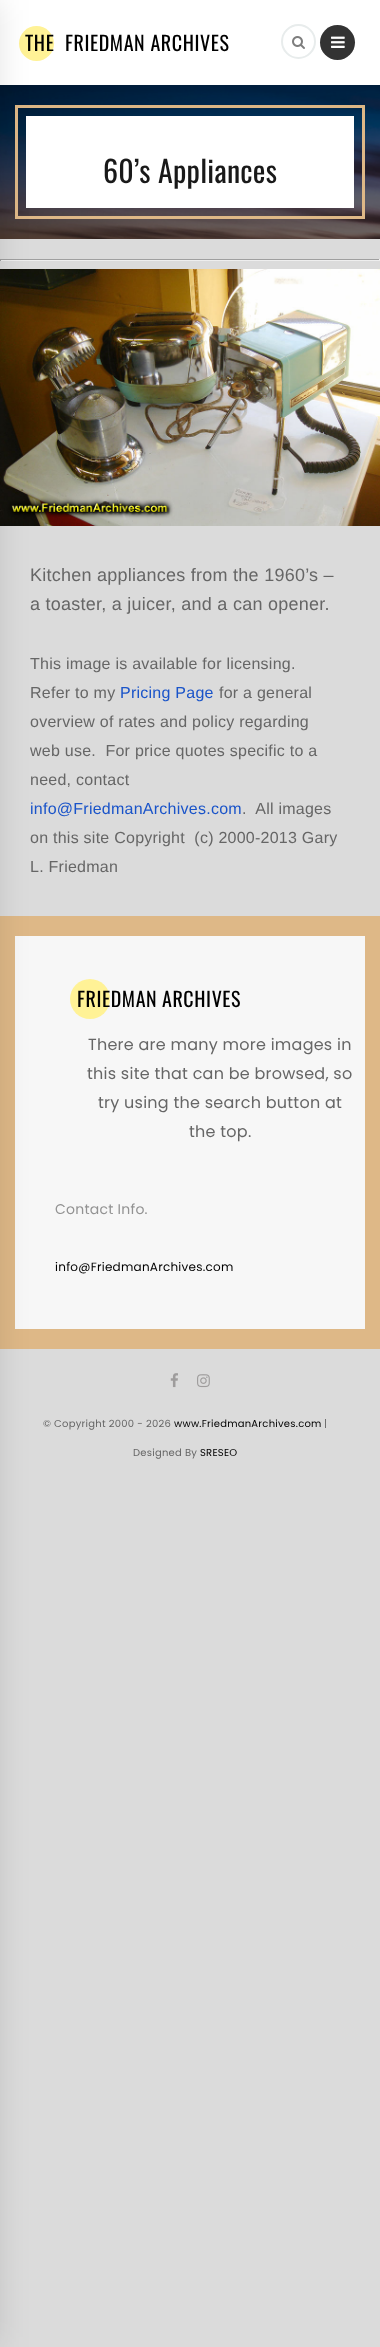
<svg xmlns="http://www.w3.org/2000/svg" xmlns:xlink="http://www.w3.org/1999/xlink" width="380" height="2347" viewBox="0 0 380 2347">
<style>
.cls-1{font:20px Oswald;letter-spacing:0.6px;fill:#000000}
.cls-2{font:30px Oswald;letter-spacing:0.25px;fill:#191919}
.cls-3{font:18px Liberation Sans;letter-spacing:0.25px;fill:#666666}
.cls-4{font:16px Liberation Sans;letter-spacing:0.25px;fill:#666666}
.cls-5{font:16px Liberation Sans;letter-spacing:0.25px;fill:#1a54c9}
.cls-6{font:16px Poppins;letter-spacing:0.25px;fill:#666666}
.cls-7{font:14px Poppins;letter-spacing:0.25px;fill:#939393}
.cls-8{font:12px Poppins;letter-spacing:0.25px;fill:#000000}
.cls-9{font:10px Poppins;letter-spacing:0.25px;fill:#666666}
.cls-10{font:10px Poppins;letter-spacing:0.25px;fill:#000000}
</style>
<rect width="100%" height="100%" fill="#dbdbdb"/>
<image xlink:href="image2.png" x="0" y="85" width="380" height="154"/>
<rect fill="none" stroke="#deb887" stroke-width="3" x="16.5" y="106.5" width="347" height="111"/>
<rect fill="#ffffff" x="26" y="116" width="328" height="92"/>
<rect fill="#000000" fill-opacity="0.1" filter="blur(15px)" x="0" y="0" width="380" height="85"/>
<rect fill="#ffffff" x="0" y="0" width="380" height="85"/>
<circle fill="#fff296" cx="36.5" cy="43.5" r="17.5"/>
<rect fill="#9f9f9f" x="0" y="259" width="380" height="1"/>
<rect fill="#eeeeee" x="379" y="259" width="1" height="2"/>
<rect fill="#eeeeee" x="0" y="260" width="380" height="1"/>
<rect fill="#9f9f9f" x="0" y="259" width="1" height="2"/>
<image xlink:href="image3.png" x="0" y="269" width="380" height="257"/>
<rect fill="#deb887" x="0" y="916" width="380" height="433"/>
<rect fill="#f7f7f7" x="15" y="936" width="350" height="393"/>
<rect fill="#000000" fill-opacity="0.1" filter="blur(15px)" x="-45" y="0" width="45" height="2347"/>
<circle fill="none" stroke="#e8ecec" stroke-width="2" cx="298.5" cy="41.5" r="16.5"/>
<image xlink:href="image0.png" x="292" y="36" width="13" height="13"/>
<circle fill="#333333" cx="337.5" cy="42.5" r="17.5"/>
<image xlink:href="image1.png" x="331" y="36" width="14" height="12"/>
<circle fill="#fff296" cx="90" cy="999" r="20"/>
<image xlink:href="image4.png" x="170" y="1373" width="8" height="15"/>
<image xlink:href="image5.png" x="197" y="1374" width="13" height="14"/>
<text class="cls-1" x="25" y="51">THE</text>
<text class="cls-1" x="65" y="51">FRIEDMAN ARCHIVES</text>
<text class="cls-2" x="103" y="183">60’s Appliances</text>
<text class="cls-3"><tspan x="30" y="581">Kitchen appliances from the 1960’s –</tspan><tspan x="30" y="610">a toaster, a juicer, and a can opener.</tspan></text>
<text class="cls-4"><tspan x="30" y="669">This image is available for licensing.</tspan><tspan x="30" y="698">Refer to my</tspan></text>
<text class="cls-5" x="120" y="698">Pricing Page</text>
<text class="cls-4" x="219" y="698">for a general</text>
<text class="cls-4" xml:space="preserve"><tspan x="30" y="727">overview of rates and policy regarding</tspan><tspan x="30" y="756">web use.  For price quotes specific to a</tspan><tspan x="30" y="785">need, contact</tspan></text>
<text class="cls-5" x="30" y="814">info@FriedmanArchives.com</text>
<text class="cls-4" xml:space="preserve" x="242" y="814">.  All images</text>
<text class="cls-4" xml:space="preserve"><tspan x="30" y="843">on this site Copyright  (c) 2000-2013 Gary</tspan><tspan x="30" y="872">L. Friedman</tspan></text>
<text class="cls-1" x="77" y="1007">FRIEDMAN</text>
<text class="cls-1" x="162" y="1007">ARCHIVES</text>
<text class="cls-6" x="88" y="1050">There are many more images in</text>
<text class="cls-6" x="87" y="1079">this site that can be browsed, so</text>
<text class="cls-6" x="98" y="1108">try using the search button at</text>
<text class="cls-6" x="189" y="1137">the top.</text>
<text class="cls-7" x="55" y="1214">Contact Info.</text>
<text class="cls-8" x="55" y="1271">info@FriedmanArchives.com</text>
<text class="cls-9" x="43" y="1427">© Copyright 2000 - 2026</text>
<text class="cls-10" x="174" y="1427">www.FriedmanArchives.com</text>
<text class="cls-9" x="324" y="1427">|</text>
<text class="cls-9" x="133" y="1456">Designed By</text>
<text class="cls-10" x="200" y="1456">SRESEO</text>
</svg>
